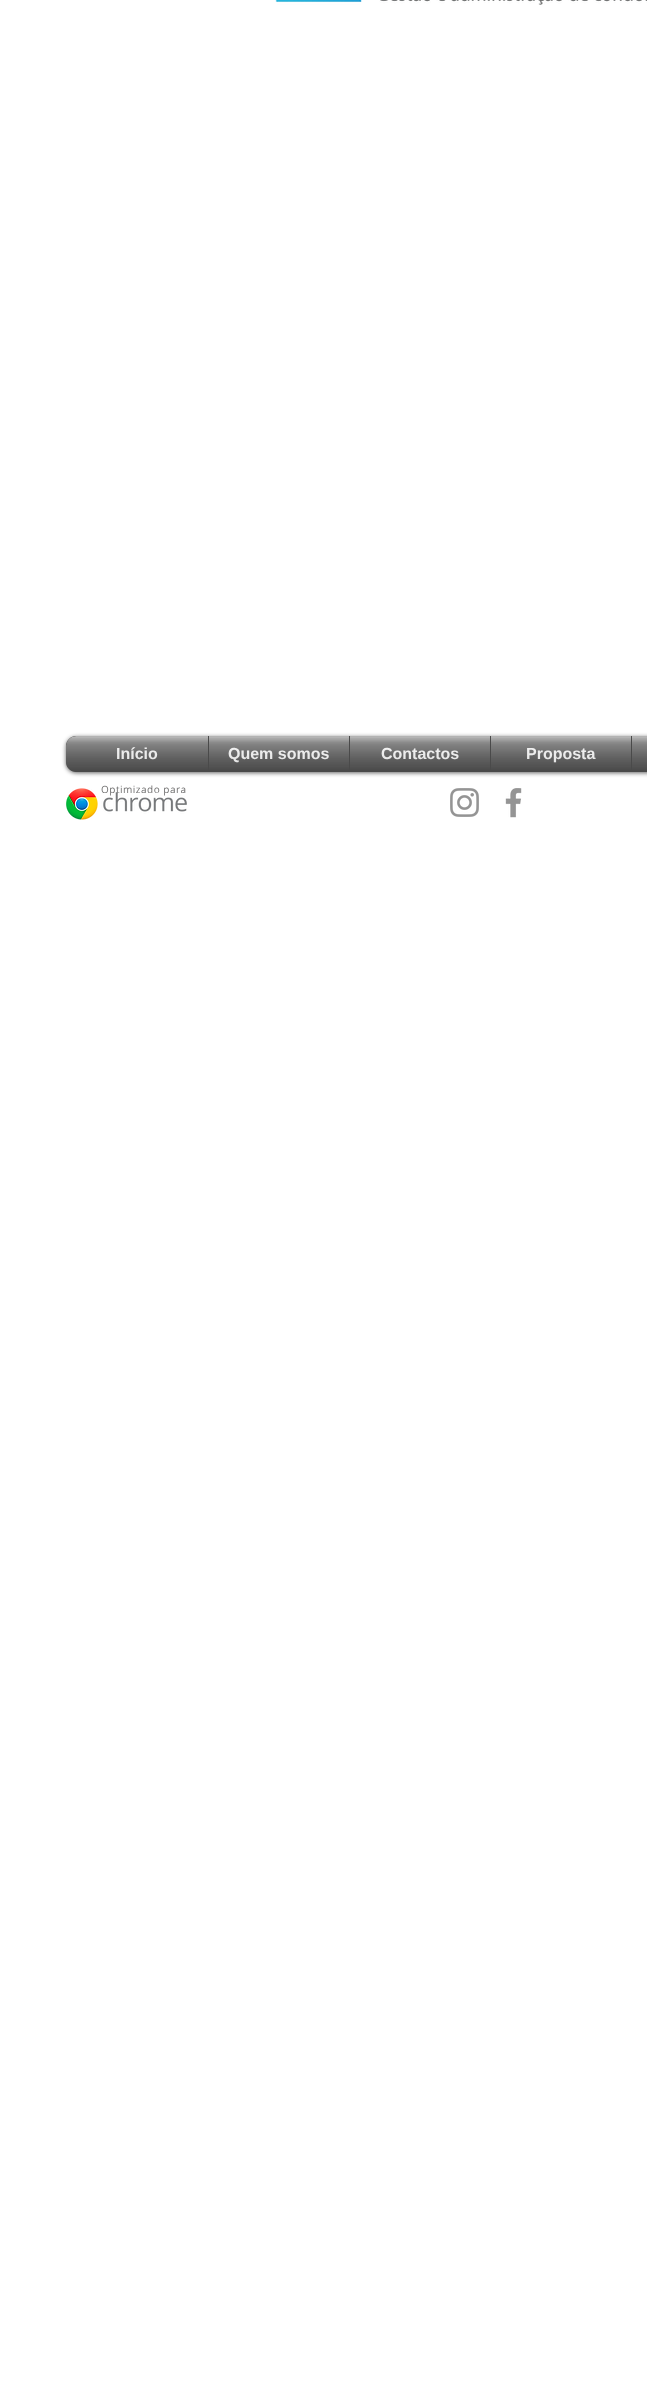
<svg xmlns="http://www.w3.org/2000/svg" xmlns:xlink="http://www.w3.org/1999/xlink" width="647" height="2397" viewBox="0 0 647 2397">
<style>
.cls-1{font:bold 16px Liberation Sans;fill:#ffffff}
.cls-2{font:10px Open Sans;letter-spacing:0.5px;fill:#717070}
</style>
<rect width="100%" height="100%" fill="#ffffff"/>
<image xlink:href="image0.png" x="275" y="0" width="372" height="5"/>
<rect fill="#000000" fill-opacity="0.6" filter="blur(2px)" x="66" y="737" width="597" height="36" rx="10"/>
<image xlink:href="image1.png" x="66" y="736" width="10" height="36"/>
<image xlink:href="image2.png" x="66" y="745" width="10" height="27"/>
<path fill="#4a4a4a" d="M76 736H208V772H76C70.5 772 66 767.5 66 762V746C66 740.5 70.5 736 76 736Z"/>
<rect fill="#4a4a4a" x="208" y="736" width="439" height="36"/>
<image xlink:href="image11.png" x="632" y="736" width="15" height="36"/>
<image xlink:href="image12.png" x="632" y="738" width="15" height="34"/>
<image xlink:href="image13.png" x="66" y="788" width="121" height="32"/>
<image xlink:href="image14.png" x="450" y="788" width="29" height="29"/>
<image xlink:href="image15.png" x="505" y="788" width="17" height="30"/>
<text class="cls-1" x="116" y="759">Início</text>
<image xlink:href="image3.png" x="66" y="736" width="142" height="36"/>
<image xlink:href="image4.png" x="66" y="738" width="142" height="34"/>
<text class="cls-1" x="228" y="759">Quem somos</text>
<image xlink:href="image5.png" x="209" y="736" width="140" height="36"/>
<image xlink:href="image6.png" x="209" y="738" width="140" height="34"/>
<text class="cls-1" x="381" y="759">Contactos</text>
<image xlink:href="image7.png" x="350" y="736" width="140" height="36"/>
<image xlink:href="image8.png" x="350" y="738" width="140" height="34"/>
<text class="cls-1" x="526" y="759">Proposta</text>
<image xlink:href="image9.png" x="491" y="736" width="140" height="36"/>
<image xlink:href="image10.png" x="491" y="738" width="140" height="34"/>
<text class="cls-2" x="101" y="793">Optimizado para</text>
</svg>
